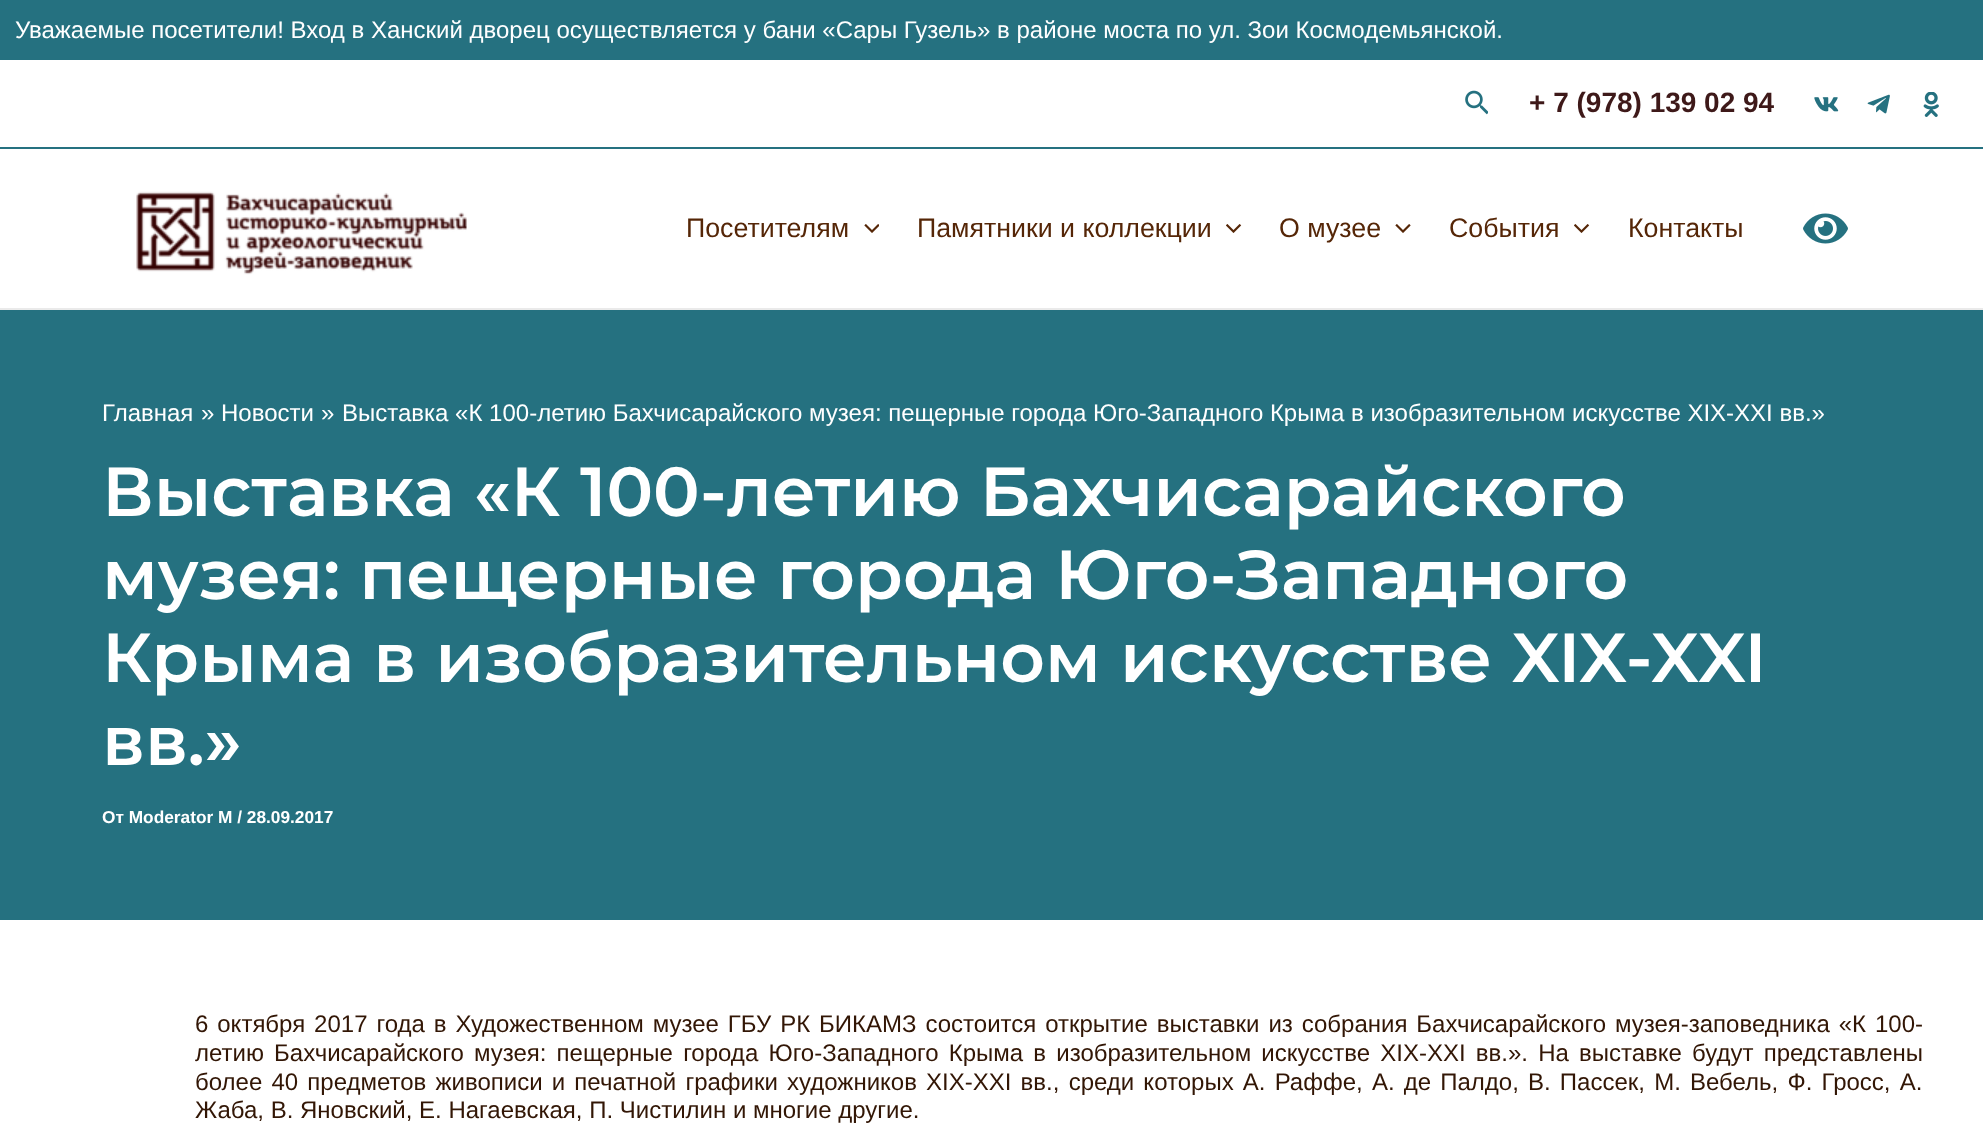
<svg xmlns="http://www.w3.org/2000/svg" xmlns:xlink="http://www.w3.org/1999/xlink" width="1983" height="1132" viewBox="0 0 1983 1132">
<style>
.cls-1{font:24px Liberation Sans;fill:#ffffff}
.cls-2{font:bold 28px Liberation Sans;fill:#3e1919}
.cls-3{font:26.75px Liberation Sans;fill:#552607}
.cls-4{font:600 69.3px Montserrat;fill:#ffffff}
.cls-5{font:bold 17.3px Liberation Sans;fill:#ffffff}
.cls-6{font:24px Liberation Sans;fill:#321605}
</style>
<rect width="100%" height="100%" fill="#ffffff"/>
<rect fill="#257180" x="0" y="0" width="1983" height="60"/>
<rect fill="#257180" x="0" y="147" width="1983" height="2"/>
<image xlink:href="image0.png" x="1465" y="90" width="23" height="25"/>
<image xlink:href="image1.png" x="1814" y="97" width="25" height="15"/>
<image xlink:href="image2.png" x="1867" y="94" width="23" height="20"/>
<image xlink:href="image3.png" x="1923" y="92" width="16" height="25"/>
<rect fill="#eaeaea" x="0" y="308" width="1983" height="2"/>
<image xlink:href="image4.png" x="136" y="191" width="331" height="84"/>
<image xlink:href="image5.png" x="864" y="224" width="15" height="9"/>
<image xlink:href="image6.png" x="1226" y="224" width="16" height="9"/>
<image xlink:href="image7.png" x="1395" y="224" width="16" height="9"/>
<image xlink:href="image6.png" x="1574" y="224" width="16" height="9"/>
<image xlink:href="image8.png" x="1803" y="213" width="45" height="31"/>
<rect fill="#257180" x="0" y="310" width="1983" height="610"/>
<text class="cls-1" x="15" y="38">Уважаемые посетители! Вход в Ханский дворец осуществляется у бани «Сары Гузель» в районе моста по ул. Зои Космодемьянской.</text>
<text class="cls-2" x="1529" y="112">+ 7 (978) 139 02 94</text>
<text class="cls-3" x="686" y="237">Посетителям</text>
<text class="cls-3" x="917" y="237">Памятники и коллекции</text>
<text class="cls-3" x="1279" y="237">О музее</text>
<text class="cls-3" x="1449" y="237">События</text>
<text class="cls-3" x="1628" y="237">Контакты</text>
<text class="cls-1" x="102" y="421">Главная</text>
<text class="cls-1" x="201" y="421">»</text>
<text class="cls-1" x="221" y="421">Новости</text>
<text class="cls-1" x="321" y="421">»</text>
<text class="cls-1" x="342" y="421">Выставка «К 100-летию Бахчисарайского музея: пещерные города Юго-Западного Крыма в изобразительном искусстве XIX-XXI вв.»</text>
<text class="cls-4"><tspan x="102" y="516">Выставка «К 100-летию Бахчисарайского</tspan><tspan x="102" y="599">музея: пещерные города Юго-Западного</tspan><tspan x="102" y="682">Крыма в изобразительном искусстве XIX-XXI</tspan><tspan x="102" y="765">вв.»</tspan></text>
<text class="cls-5" x="102" y="823">От Moderator M / 28.09.2017</text>
<text class="cls-6"><tspan x="195" y="1032" word-spacing="2.25">6 октября 2017 года в Художественном музее ГБУ РК БИКАМЗ состоится открытие выставки из собрания Бахчисарайского музея-заповедника «К 100-</tspan><tspan x="195" y="1061" word-spacing="3.5">летию Бахчисарайского музея: пещерные города Юго-Западного Крыма в изобразительном искусстве XIX-XXI вв.». На выставке будут представлены</tspan><tspan x="195" y="1090" word-spacing="2.5">более 40 предметов живописи и печатной графики художников XIX-XXI вв., среди которых А. Раффе, А. де Палдо, В. Пассек, М. Вебель, Ф. Гросс, А.</tspan><tspan x="195" y="1118">Жаба, В. Яновский, Е. Нагаевская, П. Чистилин и многие другие.</tspan></text>
</svg>
